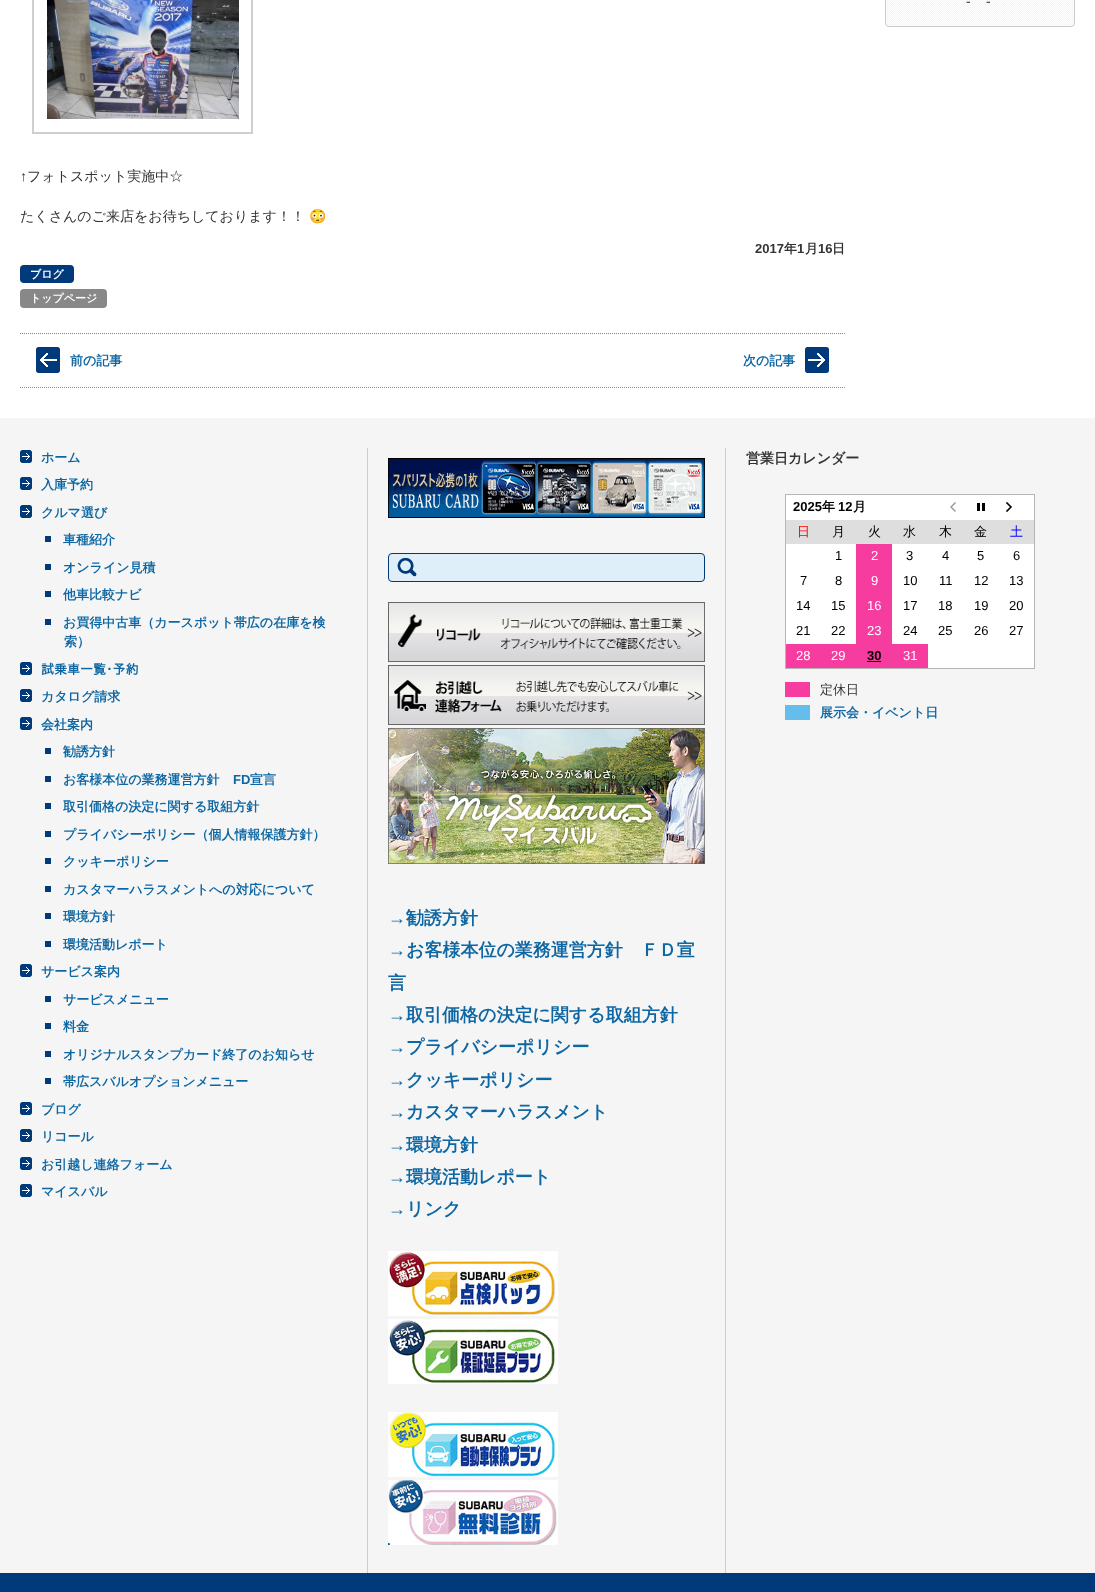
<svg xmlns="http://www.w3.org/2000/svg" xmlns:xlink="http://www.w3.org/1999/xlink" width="1095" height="1592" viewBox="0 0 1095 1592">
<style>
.cls-1{font:14px Liberation Sans;fill:#333333}
.cls-2{font:500 14px WenQuanYi Zen Hei;fill:#333333}
.cls-3{font:14px Noto Color Emoji;fill:#333333}
.cls-4{font:bold 13px Liberation Sans;fill:#333333}
.cls-5{font:bold 13px WenQuanYi Zen Hei;fill:#333333}
.cls-6{font:bold 11px WenQuanYi Zen Hei;fill:#ffffff}
.cls-7{font:bold 13px WenQuanYi Zen Hei;fill:#0e67a3}
.cls-8{font:bold 13px IPAPGothic;fill:#0e67a3}
.cls-9{font:bold 13px Liberation Sans;fill:#0e67a3}
.cls-10{font:bold 18px Liberation Sans;fill:#0e67a3}
.cls-11{font:bold 18px WenQuanYi Zen Hei;fill:#0e67a3}
.cls-12{font:bold 14px WenQuanYi Zen Hei;fill:#333333}
.cls-13{font:bold 13px Liberation Sans;fill:#000000}
.cls-14{font:bold 13px WenQuanYi Zen Hei;fill:#000000}
.cls-15{font:500 13px WenQuanYi Zen Hei;fill:#ff0000}
.cls-16{font:500 13px WenQuanYi Zen Hei;fill:#000000}
.cls-17{font:500 13px WenQuanYi Zen Hei;fill:#0000ff}
.cls-18{font:13px Liberation Sans;fill:#000000}
.cls-19{font:13px Liberation Sans;fill:#ffffff}
.cls-20{font:500 13px WenQuanYi Zen Hei;fill:#333333}
</style>
<rect width="100%" height="100%" fill="#ffffff"/>
<image xlink:href="image0.png" x="885" y="0" width="190" height="27"/>
<rect fill="none" stroke="#cccccc" x="885.5" y="-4.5" width="189" height="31" rx="3.5"/>
<rect fill="none" stroke="#cfcfcf" stroke-width="2" x="33" y="-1" width="219" height="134"/>
<image xlink:href="image1.png" x="47" y="0" width="192" height="119"/>
<rect fill="#003a7a" x="20" y="265" width="54" height="18" rx="4"/>
<rect fill="#888888" x="20" y="289" width="87" height="19" rx="4"/>
<path fill="none" stroke="#888888" stroke-dasharray="1 1" d="M20 333.5H845"/>
<path fill="none" stroke="#888888" stroke-dasharray="1 1" d="M20 387.5H845"/>
<image xlink:href="image2.png" x="36" y="347" width="24" height="26"/>
<image xlink:href="image3.png" x="805" y="347" width="24" height="26"/>
<rect fill="#f5f5f5" x="0" y="418" width="1095" height="1155"/>
<rect fill="#cccccc" x="367" y="448" width="1" height="1125"/>
<image xlink:href="image4.png" x="20" y="450" width="12" height="13"/>
<image xlink:href="image4.png" x="20" y="477" width="12" height="13"/>
<image xlink:href="image4.png" x="20" y="505" width="12" height="13"/>
<rect fill="#003a7a" x="45" y="536" width="6" height="6"/>
<rect fill="#003a7a" x="45" y="564" width="6" height="6"/>
<rect fill="#003a7a" x="45" y="591" width="6" height="6"/>
<rect fill="#003a7a" x="45" y="619" width="6" height="6"/>
<image xlink:href="image4.png" x="20" y="662" width="12" height="13"/>
<image xlink:href="image4.png" x="20" y="689" width="12" height="13"/>
<image xlink:href="image4.png" x="20" y="717" width="12" height="13"/>
<rect fill="#003a7a" x="45" y="748" width="6" height="6"/>
<rect fill="#003a7a" x="45" y="776" width="6" height="6"/>
<rect fill="#003a7a" x="45" y="803" width="6" height="6"/>
<rect fill="#003a7a" x="45" y="831" width="6" height="6"/>
<rect fill="#003a7a" x="45" y="858" width="6" height="6"/>
<rect fill="#003a7a" x="45" y="886" width="6" height="6"/>
<rect fill="#003a7a" x="45" y="913" width="6" height="6"/>
<rect fill="#003a7a" x="45" y="941" width="6" height="6"/>
<image xlink:href="image4.png" x="20" y="964" width="12" height="13"/>
<rect fill="#003a7a" x="45" y="996" width="6" height="6"/>
<rect fill="#003a7a" x="45" y="1023" width="6" height="6"/>
<rect fill="#003a7a" x="45" y="1051" width="6" height="6"/>
<rect fill="#003a7a" x="45" y="1078" width="6" height="6"/>
<image xlink:href="image4.png" x="20" y="1102" width="12" height="13"/>
<image xlink:href="image4.png" x="20" y="1129" width="12" height="13"/>
<image xlink:href="image4.png" x="20" y="1157" width="12" height="13"/>
<image xlink:href="image4.png" x="20" y="1184" width="12" height="13"/>
<rect fill="#cccccc" x="725" y="448" width="1" height="1125"/>
<image xlink:href="image5.png" x="388" y="458" width="317" height="60"/>
<rect fill="#dfeff9" x="388" y="553" width="317" height="29" rx="4"/>
<image xlink:href="image6.png" x="397" y="558" width="20" height="19"/>
<rect fill="none" stroke="#003a7a" x="388.5" y="553.5" width="316" height="28" rx="3.5"/>
<image xlink:href="image7.png" x="388" y="602" width="317" height="60"/>
<image xlink:href="image8.png" x="388" y="665" width="317" height="60"/>
<image xlink:href="image9.png" x="388" y="728" width="317" height="136"/>
<image xlink:href="image10.png" x="388" y="1251" width="170" height="65"/>
<image xlink:href="image11.png" x="388" y="1319" width="170" height="65"/>
<image xlink:href="image12.png" x="388" y="1412" width="170" height="65"/>
<image xlink:href="image13.png" x="388" y="1480" width="170" height="65"/>
<rect fill="#ffffff" x="786" y="495" width="248" height="173"/>
<rect fill="#b5b5b6" x="785" y="494" width="250" height="1"/>
<rect fill="#b5b5b6" x="1034" y="494" width="1" height="175"/>
<rect fill="#b5b5b6" x="785" y="668" width="250" height="1"/>
<rect fill="#b5b5b6" x="785" y="494" width="1" height="175"/>
<image xlink:href="image14.png" x="950" y="502" width="6" height="10"/>
<image xlink:href="image15.png" x="977" y="503" width="8" height="8"/>
<image xlink:href="image16.png" x="1006" y="502" width="6" height="10"/>
<rect fill="#dedede" x="786" y="520" width="248" height="24"/>
<rect fill="#f63c9f" x="856" y="544" width="36" height="100"/>
<rect fill="#f63c9f" x="786" y="644" width="142" height="24"/>
<rect fill="#000000" x="867" y="661" width="14" height="1"/>
<rect fill="#f63c9f" x="785" y="682" width="25" height="15"/>
<rect fill="#64bdeb" x="785" y="705" width="25" height="15"/>
<rect fill="#003a7a" x="0" y="1573" width="1095" height="19"/>
<text class="cls-1" x="966" y="6">-</text>
<text class="cls-1" x="986" y="6">-</text>
<text class="cls-1" x="20" y="181">↑</text>
<text class="cls-2" x="27" y="181">フォトスポット実施中☆</text>
<text class="cls-2" x="20" y="221">たくさんのご来店をお待ちしております！！</text>
<text class="cls-3" x="309" y="221">😳</text>
<text class="cls-4" x="755" y="253">2017</text>
<text class="cls-5" x="784" y="253">年</text>
<text class="cls-4" x="797" y="253">1</text>
<text class="cls-5" x="805" y="253">月</text>
<text class="cls-4" x="818" y="253">16</text>
<text class="cls-5" x="832" y="253">日</text>
<text class="cls-6" x="30" y="278">ブログ</text>
<text class="cls-6" x="30" y="302">トップページ</text>
<text class="cls-7" x="70" y="365">前の記事</text>
<text class="cls-7" x="743" y="365">次の記事</text>
<text class="cls-7" x="41" y="462">ホーム</text>
<text class="cls-7" x="41" y="489">入庫予約</text>
<text class="cls-7" x="41" y="517">クルマ選び</text>
<text class="cls-7" x="63" y="544">車種紹介</text>
<text class="cls-7" x="63" y="572">オンライン見積</text>
<text class="cls-7" x="63" y="599">他車比較ナビ</text>
<text class="cls-7" x="63" y="627">お買得中古車（カースポット帯広の在庫を検</text>
<text class="cls-7" x="64" y="646">索）</text>
<text class="cls-8" x="41" y="674">試乗車一覧･予約</text>
<text class="cls-7" x="41" y="701">カタログ請求</text>
<text class="cls-7" x="41" y="729">会社案内</text>
<text class="cls-7" x="63" y="756">勧誘方針</text>
<text class="cls-7" x="63" y="784">お客様本位の業務運営方針</text>
<text class="cls-9" x="233" y="784">FD</text>
<text class="cls-7" x="250" y="784">宣言</text>
<text class="cls-7" x="63" y="811">取引価格の決定に関する取組方針</text>
<text class="cls-7" x="63" y="839">プライバシーポリシー（個人情報保護方針）</text>
<text class="cls-7" x="63" y="866">クッキーポリシー</text>
<text class="cls-7" x="63" y="894">カスタマーハラスメントへの対応について</text>
<text class="cls-7" x="63" y="921">環境方針</text>
<text class="cls-7" x="63" y="949">環境活動レポート</text>
<text class="cls-7" x="41" y="976">サービス案内</text>
<text class="cls-7" x="63" y="1004">サービスメニュー</text>
<text class="cls-7" x="63" y="1031">料金</text>
<text class="cls-7" x="63" y="1059">オリジナルスタンプカード終了のお知らせ</text>
<text class="cls-7" x="63" y="1086">帯広スバルオプションメニュー</text>
<text class="cls-7" x="41" y="1114">ブログ</text>
<text class="cls-7" x="41" y="1141">リコール</text>
<text class="cls-7" x="41" y="1169">お引越し連絡フォーム</text>
<text class="cls-7" x="41" y="1196">マイスバル</text>
<text class="cls-10" x="388" y="924">→</text>
<text class="cls-11" x="406" y="924">勧誘方針</text>
<text class="cls-10" x="388" y="956">→</text>
<text class="cls-11" x="406" y="956">お客様本位の業務運営方針　ＦＤ宣</text>
<text class="cls-11" x="388" y="989">言</text>
<text class="cls-10" x="388" y="1021">→</text>
<text class="cls-11" x="406" y="1021">取引価格の決定に関する取組方針</text>
<text class="cls-10" x="388" y="1053">→</text>
<text class="cls-11" x="406" y="1053">プライバシーポリシー</text>
<text class="cls-10" x="388" y="1086">→</text>
<text class="cls-11" x="406" y="1086">クッキーポリシー</text>
<text class="cls-10" x="388" y="1118">→</text>
<text class="cls-11" x="406" y="1118">カスタマーハラスメント</text>
<text class="cls-10" x="388" y="1151">→</text>
<text class="cls-11" x="406" y="1151">環境方針</text>
<text class="cls-10" x="388" y="1183">→</text>
<text class="cls-11" x="406" y="1183">環境活動レポート</text>
<text class="cls-10" x="388" y="1215">→</text>
<text class="cls-11" x="406" y="1215">リンク</text>
<text class="cls-12" x="746" y="463">営業日カレンダー</text>
<text class="cls-13" x="793" y="511">2025</text>
<text class="cls-14" x="822" y="511">年</text>
<text class="cls-13" x="838" y="511">12</text>
<text class="cls-14" x="853" y="511">月</text>
<text class="cls-15" x="797" y="536">日</text>
<text class="cls-16" x="832" y="536">月</text>
<text class="cls-16" x="868" y="536">火</text>
<text class="cls-16" x="903" y="536">水</text>
<text class="cls-16" x="939" y="536">木</text>
<text class="cls-16" x="974" y="536">金</text>
<text class="cls-17" x="1010" y="536">土</text>
<text class="cls-18" x="835" y="560">1</text>
<text class="cls-19" x="871" y="560">2</text>
<text class="cls-18" x="906" y="560">3</text>
<text class="cls-18" x="942" y="560">4</text>
<text class="cls-18" x="977" y="560">5</text>
<text class="cls-18" x="1013" y="560">6</text>
<text class="cls-18" x="800" y="585">7</text>
<text class="cls-18" x="835" y="585">8</text>
<text class="cls-19" x="871" y="585">9</text>
<text class="cls-18" x="903" y="585">10</text>
<text class="cls-18" x="939" y="585">11</text>
<text class="cls-18" x="974" y="585">12</text>
<text class="cls-18" x="1009" y="585">13</text>
<text class="cls-18" x="796" y="610">14</text>
<text class="cls-18" x="831" y="610">15</text>
<text class="cls-19" x="867" y="610">16</text>
<text class="cls-18" x="903" y="610">17</text>
<text class="cls-18" x="938" y="610">18</text>
<text class="cls-18" x="974" y="610">19</text>
<text class="cls-18" x="1009" y="610">20</text>
<text class="cls-18" x="796" y="635">21</text>
<text class="cls-18" x="831" y="635">22</text>
<text class="cls-19" x="867" y="635">23</text>
<text class="cls-18" x="903" y="635">24</text>
<text class="cls-18" x="938" y="635">25</text>
<text class="cls-18" x="974" y="635">26</text>
<text class="cls-18" x="1009" y="635">27</text>
<text class="cls-19" x="796" y="660">28</text>
<text class="cls-19" x="831" y="660">29</text>
<text class="cls-13" x="867" y="660">30</text>
<text class="cls-19" x="903" y="660">31</text>
<text class="cls-20" x="820" y="694">定休日</text>
<text class="cls-7" x="820" y="717">展示会・イベント日</text>
</svg>
